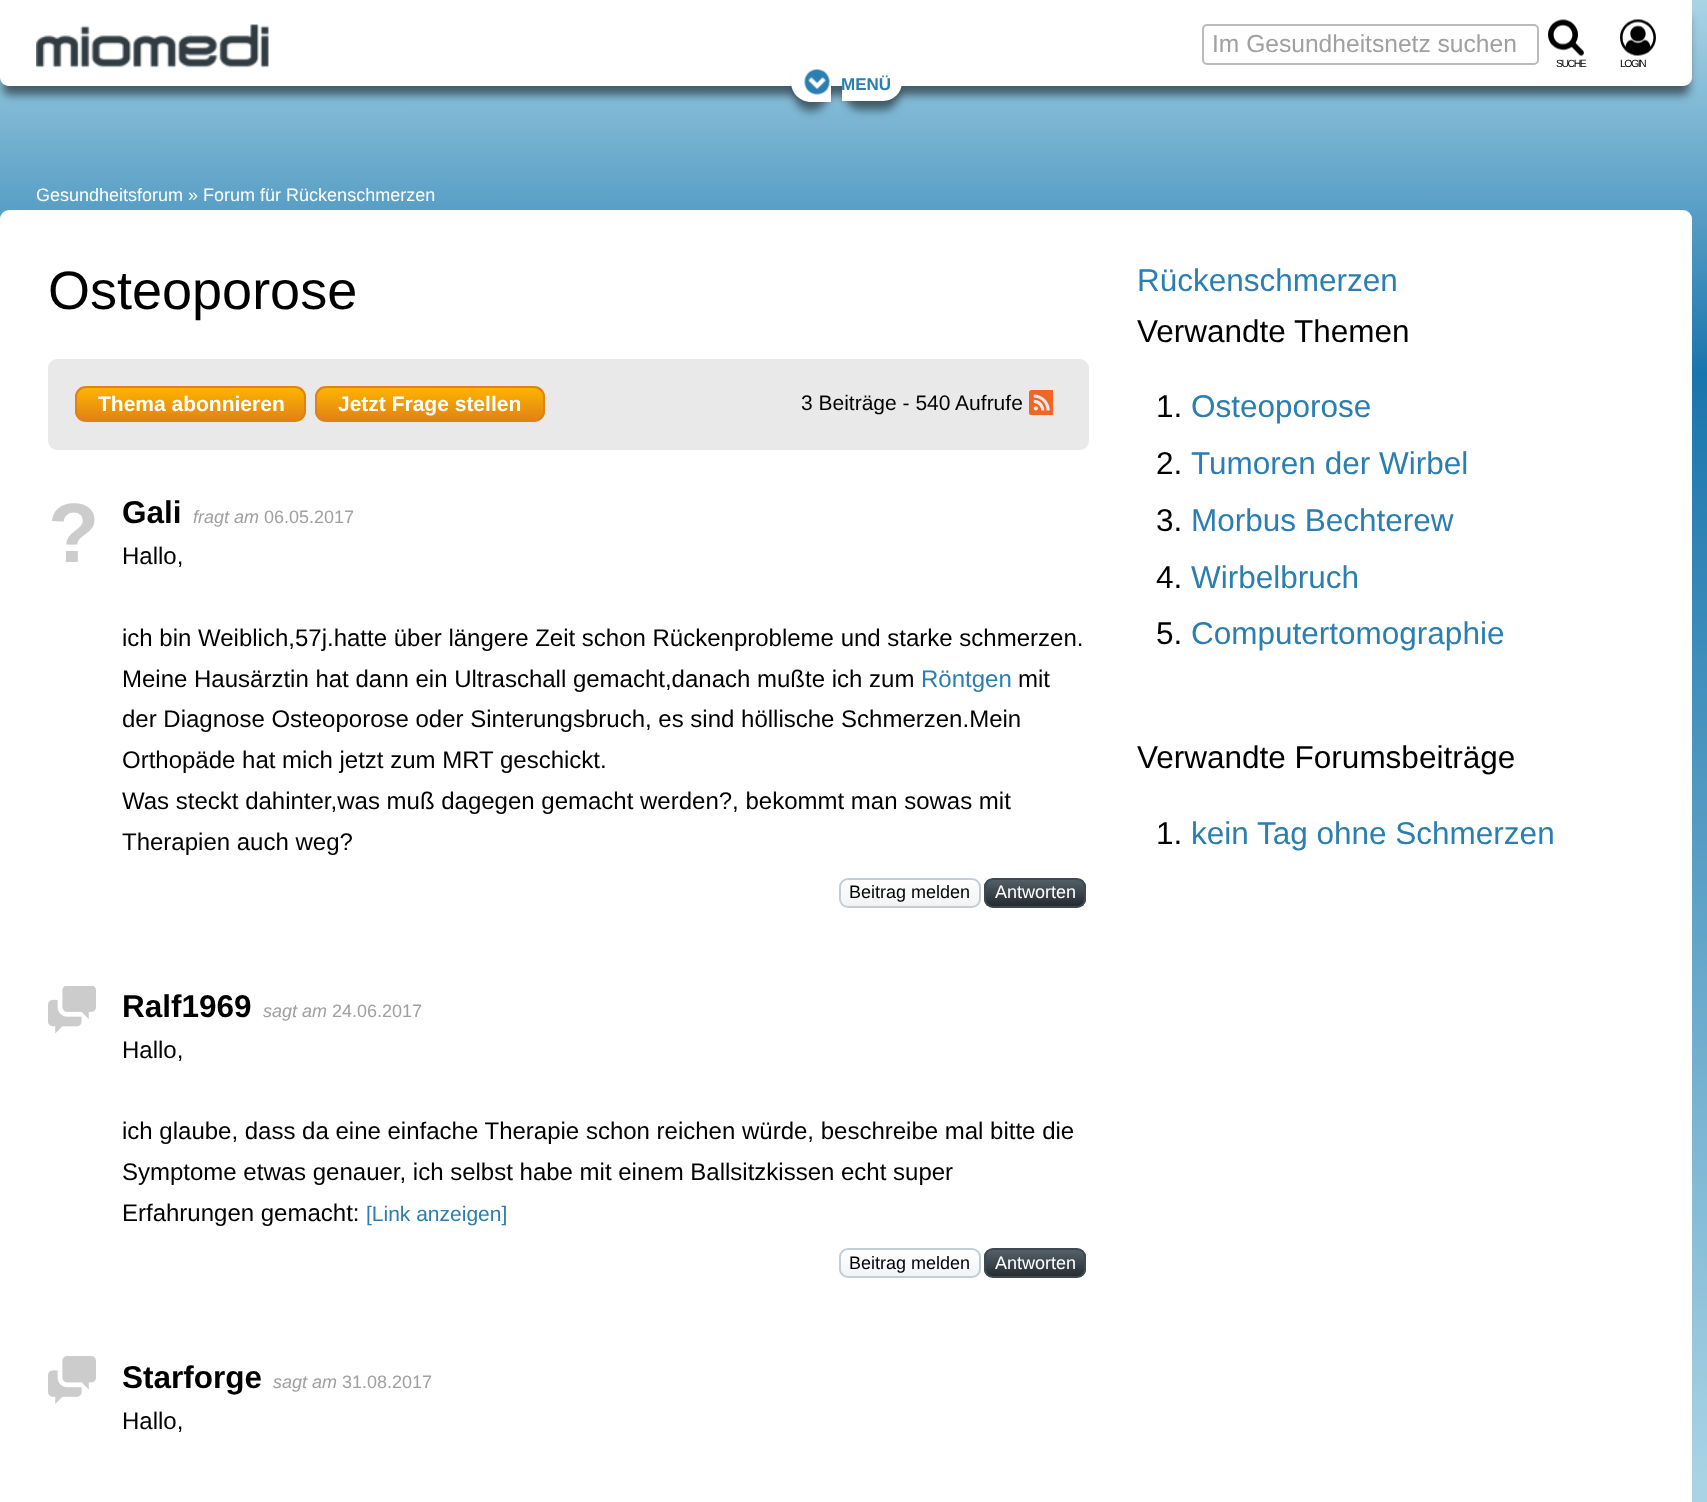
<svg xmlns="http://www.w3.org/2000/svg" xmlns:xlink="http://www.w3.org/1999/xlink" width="1707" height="1502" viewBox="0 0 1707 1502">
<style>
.cls-1{font:24.6px Liberation Sans;fill:#a0a0a0}
.cls-2{font:10.5px Liberation Sans;letter-spacing:-1.5px;fill:#000000}
.cls-3{font:bold 17px Liberation Sans;fill:#2a7eb0}
.cls-4{font:18px Liberation Sans;fill:#ffffff}
.cls-5{font:54px Liberation Sans;fill:#000000}
.cls-6{font:bold 21px Liberation Sans;fill:#ffffff}
.cls-7{font:21px Liberation Sans;fill:#000000}
.cls-8{font:bold 84px Liberation Sans;fill:#cccccc}
.cls-9{font:bold 31.5px Liberation Sans;fill:#000000}
.cls-10{font:italic 18px Liberation Sans;fill:#a0a0a0}
.cls-11{font:18px Liberation Sans;fill:#a0a0a0}
.cls-12{font:24px Liberation Sans;fill:#000000}
.cls-13{font:24px Liberation Sans;fill:#2a7eb0}
.cls-14{font:18px Liberation Sans;fill:#000000}
.cls-15{font:21px Liberation Sans;fill:#2a7eb0}
.cls-16{font:31.5px Liberation Sans;fill:#2a7eb0}
.cls-17{font:31.5px Liberation Sans;fill:#000000}
</style>
<defs>
<linearGradient id="g1" gradientUnits="userSpaceOnUse" x1="853" y1="0" x2="854" y2="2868"><stop offset="0" stop-color="#aad4e5"/><stop offset="0.13" stop-color="#1975ad"/><stop offset="0.52" stop-color="#aad4e5"/><stop offset="1" stop-color="#aad4e5"/></linearGradient>
<clipPath id="clip1"><rect x="75" y="386" width="231" height="36" rx="11"/></clipPath>
<linearGradient id="g2" gradientUnits="userSpaceOnUse" x1="77" y1="387" x2="77" y2="420"><stop offset="0" stop-color="#ffb500"/><stop offset="1" stop-color="#e18314"/></linearGradient>
<clipPath id="clip2"><rect x="315" y="386" width="230" height="36" rx="11"/></clipPath>
<linearGradient id="g3" gradientUnits="userSpaceOnUse" x1="317" y1="387" x2="317" y2="420"><stop offset="0" stop-color="#ffb500"/><stop offset="1" stop-color="#e18314"/></linearGradient>
<clipPath id="clip3"><rect x="839" y="878" width="142" height="30" rx="9"/></clipPath>
<linearGradient id="g4" gradientUnits="userSpaceOnUse" x1="840" y1="879" x2="840" y2="906"><stop offset="0" stop-color="#ffffff"/><stop offset="1" stop-color="#f1f3f5"/></linearGradient>
<clipPath id="clip4"><rect x="984" y="878" width="102" height="30" rx="9"/></clipPath>
<linearGradient id="g5" gradientUnits="userSpaceOnUse" x1="986" y1="879" x2="986" y2="906"><stop offset="0" stop-color="#556068"/><stop offset="1" stop-color="#242b31"/></linearGradient>
<clipPath id="clip5"><rect x="839" y="1248" width="142" height="30" rx="9"/></clipPath>
<linearGradient id="g6" gradientUnits="userSpaceOnUse" x1="840" y1="1250" x2="840" y2="1277"><stop offset="0" stop-color="#ffffff"/><stop offset="1" stop-color="#f1f3f5"/></linearGradient>
<clipPath id="clip6"><rect x="984" y="1248" width="102" height="30" rx="9"/></clipPath>
<linearGradient id="g7" gradientUnits="userSpaceOnUse" x1="986" y1="1250" x2="986" y2="1277"><stop offset="0" stop-color="#556068"/><stop offset="1" stop-color="#242b31"/></linearGradient>
</defs>
<rect width="100%" height="100%" fill="#ffffff"/>
<rect fill="url(#g1)" x="0" y="0" width="1707" height="1502"/>
<rect fill="#000000" fill-opacity="0.5" filter="blur(4px)" x="3" y="15" width="1686" height="80" rx="6"/>
<path fill="#ffffff" d="M0 0H1692V77C1692 82 1688 86 1683 86H9C4 86 0 82 0 77Z"/>
<image xlink:href="image0.png" x="36" y="24" width="233" height="44"/>
<rect fill="none" stroke="#bbbbbb" stroke-width="2" x="1203" y="25" width="335" height="39" rx="4"/>
<image xlink:href="image1.png" x="1548" y="19" width="36" height="37"/>
<image xlink:href="image2.png" x="1620" y="19" width="36" height="37"/>
<rect fill="#000000" fill-opacity="0.5" filter="blur(4px)" x="794" y="77" width="34" height="34" rx="17"/>
<path fill="#ffffff" d="M811 62H831V102H811C800 102 791 93 791 82C791 71 800 62 811 62Z"/>
<rect fill="#000000" fill-opacity="0.5" filter="blur(4px)" x="845" y="78" width="54" height="32" rx="16"/>
<path fill="#ffffff" d="M842 63H883C893.5 63 902 71.5 902 82C902 92.5 893.5 101 883 101H842Z"/>
<image xlink:href="image3.png" x="804" y="69" width="26" height="26"/>
<rect fill="#ffffff" x="0" y="210" width="1692" height="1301" rx="9"/>
<rect fill="#e9e9e9" x="48" y="359" width="1041" height="91" rx="9"/>
<g clip-path="url(#clip1)">
<rect fill="url(#g2)" x="75" y="387" width="231" height="33"/>
</g>
<rect fill="none" stroke="#e18314" stroke-width="2" x="76" y="387" width="229" height="34" rx="10"/>
<g clip-path="url(#clip2)">
<rect fill="url(#g3)" x="315" y="387" width="230" height="33"/>
</g>
<rect fill="none" stroke="#e18314" stroke-width="2" x="316" y="387" width="228" height="34" rx="10"/>
<image xlink:href="image4.png" x="1029" y="390" width="24" height="26"/>
<g clip-path="url(#clip3)">
<rect fill="url(#g4)" x="839" y="879" width="142" height="27"/>
</g>
<rect fill="none" stroke="#c3cfd7" stroke-width="2" x="840" y="879" width="140" height="28" rx="8"/>
<g clip-path="url(#clip4)">
<rect fill="url(#g5)" x="984" y="879" width="102" height="27"/>
</g>
<rect fill="none" stroke="#3e4951" stroke-width="2" x="985" y="879" width="100" height="28" rx="8"/>
<image xlink:href="image5.png" x="48" y="986" width="48" height="48"/>
<g clip-path="url(#clip5)">
<rect fill="url(#g6)" x="839" y="1250" width="142" height="27"/>
</g>
<rect fill="none" stroke="#c3cfd7" stroke-width="2" x="840" y="1249" width="140" height="28" rx="8"/>
<g clip-path="url(#clip6)">
<rect fill="url(#g7)" x="984" y="1250" width="102" height="27"/>
</g>
<rect fill="none" stroke="#3e4951" stroke-width="2" x="985" y="1249" width="100" height="28" rx="8"/>
<image xlink:href="image6.png" x="48" y="1356" width="48" height="48"/>
<text class="cls-1" x="1212" y="52">Im Gesundheitsnetz suchen</text>
<text class="cls-2" x="1556" y="67">SUCHE</text>
<text class="cls-2" x="1620" y="67">LOGIN</text>
<text class="cls-3" x="841" y="90">MENÜ</text>
<text class="cls-4" x="36" y="201">Gesundheitsforum » Forum für Rückenschmerzen</text>
<text class="cls-5" x="48" y="309">Osteoporose</text>
<text class="cls-6" x="98" y="411">Thema abonnieren</text>
<text class="cls-6" x="338" y="411">Jetzt Frage stellen</text>
<text class="cls-7" x="801" y="410">3 Beiträge - 540 Aufrufe</text>
<text class="cls-8" x="48" y="562">?</text>
<text class="cls-9" x="122" y="523">Gali</text>
<text class="cls-10" x="193" y="523">fragt am</text>
<text class="cls-11" x="264" y="523">06.05.2017</text>
<text class="cls-12" x="122" y="564">Hallo,</text>
<text class="cls-12"><tspan x="122" y="646">ich bin Weiblich,57j.hatte über längere Zeit schon Rückenprobleme und starke schmerzen.</tspan><tspan x="122" y="687">Meine Hausärztin hat dann ein Ultraschall gemacht,danach mußte ich zum</tspan></text>
<text class="cls-13" x="921" y="687">Röntgen</text>
<text class="cls-12" x="1018" y="687">mit</text>
<text class="cls-12"><tspan x="122" y="727">der Diagnose Osteoporose oder Sinterungsbruch, es sind höllische Schmerzen.Mein</tspan><tspan x="122" y="768">Orthopäde hat mich jetzt zum MRT geschickt.</tspan><tspan x="122" y="809">Was steckt dahinter,was muß dagegen gemacht werden?, bekommt man sowas mit</tspan><tspan x="122" y="850">Therapien auch weg?</tspan></text>
<text class="cls-14" x="849" y="898">Beitrag melden</text>
<text class="cls-4" x="995" y="898">Antworten</text>
<text class="cls-9" x="122" y="1017">Ralf1969</text>
<text class="cls-10" x="263" y="1017">sagt am</text>
<text class="cls-11" x="332" y="1017">24.06.2017</text>
<text class="cls-12" x="122" y="1058">Hallo,</text>
<text class="cls-12"><tspan x="122" y="1139">ich glaube, dass da eine einfache Therapie schon reichen würde, beschreibe mal bitte die</tspan><tspan x="122" y="1180">Symptome etwas genauer, ich selbst habe mit einem Ballsitzkissen echt super</tspan><tspan x="122" y="1221">Erfahrungen gemacht:</tspan></text>
<text class="cls-15" x="366" y="1221">[Link anzeigen]</text>
<text class="cls-14" x="849" y="1269">Beitrag melden</text>
<text class="cls-4" x="995" y="1269">Antworten</text>
<text class="cls-9" x="122" y="1388">Starforge</text>
<text class="cls-10" x="273" y="1388">sagt am</text>
<text class="cls-11" x="342" y="1388">31.08.2017</text>
<text class="cls-12" x="122" y="1429">Hallo,</text>
<text class="cls-16" x="1137" y="291">Rückenschmerzen</text>
<text class="cls-17" x="1137" y="342">Verwandte Themen</text>
<text class="cls-17" x="1156" y="417">1.</text>
<text class="cls-16" x="1191" y="417">Osteoporose</text>
<text class="cls-17" x="1156" y="474">2.</text>
<text class="cls-16" x="1191" y="474">Tumoren der Wirbel</text>
<text class="cls-17" x="1156" y="531">3.</text>
<text class="cls-16" x="1191" y="531">Morbus Bechterew</text>
<text class="cls-17" x="1156" y="588">4.</text>
<text class="cls-16" x="1191" y="588">Wirbelbruch</text>
<text class="cls-17" x="1156" y="644">5.</text>
<text class="cls-16" x="1191" y="644">Computertomographie</text>
<text class="cls-17" x="1137" y="768">Verwandte Forumsbeiträge</text>
<text class="cls-17" x="1156" y="844">1.</text>
<text class="cls-16" x="1191" y="844">kein Tag ohne Schmerzen</text>
</svg>
